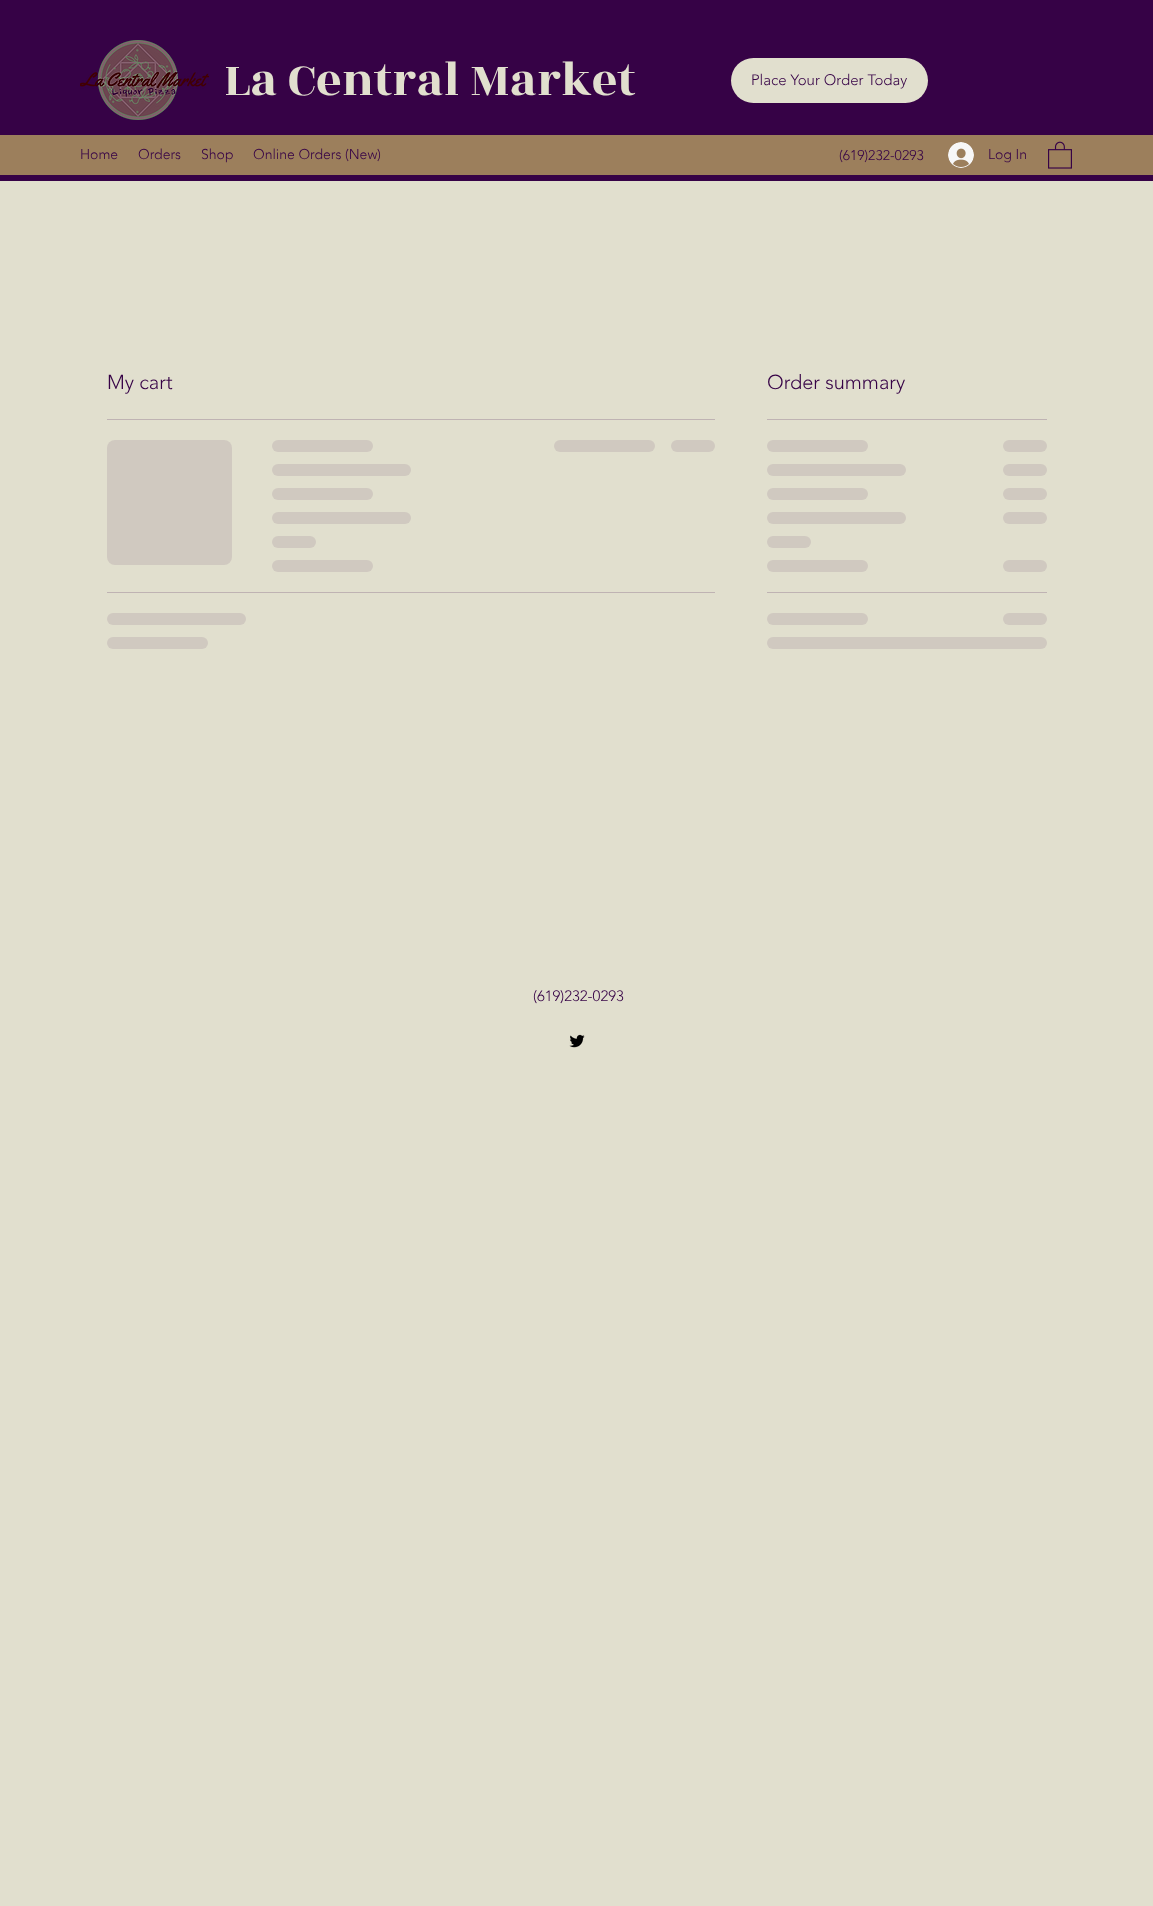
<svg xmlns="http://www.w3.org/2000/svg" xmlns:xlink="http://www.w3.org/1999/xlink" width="1153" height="1906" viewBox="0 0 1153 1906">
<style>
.cls-1{font:50px Rozha One;fill:#e1dfce}
.cls-2{font:300 15px 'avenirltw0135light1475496';fill:#360246}
.cls-3{font:300 14px 'avenirltw0135light1475496';fill:#360246}
.cls-4{font:300 20px 'avenirltw0135light1475496';fill:#360246}
</style>
<defs>
<linearGradient id="g1" gradientUnits="userSpaceOnUse" x1="107" y1="503" x2="607" y2="503"><stop offset="0.25" stop-color="#d0c9c0"/><stop offset="0.37" stop-color="#bfb3b3"/><stop offset="0.63" stop-color="#d0c9c0"/></linearGradient>
<linearGradient id="g2" gradientUnits="userSpaceOnUse" x1="272" y1="446" x2="676" y2="446"><stop offset="0.25" stop-color="#d0c9c0"/><stop offset="0.37" stop-color="#bfb3b3"/><stop offset="0.63" stop-color="#d0c9c0"/></linearGradient>
<linearGradient id="g3" gradientUnits="userSpaceOnUse" x1="272" y1="470" x2="828" y2="470"><stop offset="0.25" stop-color="#d0c9c0"/><stop offset="0.37" stop-color="#bfb3b3"/><stop offset="0.63" stop-color="#d0c9c0"/></linearGradient>
<linearGradient id="g4" gradientUnits="userSpaceOnUse" x1="272" y1="494" x2="676" y2="494"><stop offset="0.25" stop-color="#d0c9c0"/><stop offset="0.37" stop-color="#bfb3b3"/><stop offset="0.63" stop-color="#d0c9c0"/></linearGradient>
<linearGradient id="g5" gradientUnits="userSpaceOnUse" x1="272" y1="518" x2="828" y2="518"><stop offset="0.25" stop-color="#d0c9c0"/><stop offset="0.37" stop-color="#bfb3b3"/><stop offset="0.63" stop-color="#d0c9c0"/></linearGradient>
<linearGradient id="g6" gradientUnits="userSpaceOnUse" x1="272" y1="542" x2="448" y2="542"><stop offset="0.25" stop-color="#d0c9c0"/><stop offset="0.37" stop-color="#bfb3b3"/><stop offset="0.63" stop-color="#d0c9c0"/></linearGradient>
<linearGradient id="g7" gradientUnits="userSpaceOnUse" x1="272" y1="566" x2="676" y2="566"><stop offset="0.25" stop-color="#d0c9c0"/><stop offset="0.37" stop-color="#bfb3b3"/><stop offset="0.63" stop-color="#d0c9c0"/></linearGradient>
<linearGradient id="g8" gradientUnits="userSpaceOnUse" x1="554" y1="446" x2="958" y2="446"><stop offset="0.25" stop-color="#d0c9c0"/><stop offset="0.37" stop-color="#bfb3b3"/><stop offset="0.63" stop-color="#d0c9c0"/></linearGradient>
<linearGradient id="g9" gradientUnits="userSpaceOnUse" x1="671" y1="446" x2="847" y2="446"><stop offset="0.25" stop-color="#d0c9c0"/><stop offset="0.37" stop-color="#bfb3b3"/><stop offset="0.63" stop-color="#d0c9c0"/></linearGradient>
<linearGradient id="g10" gradientUnits="userSpaceOnUse" x1="107" y1="619" x2="663" y2="619"><stop offset="0.25" stop-color="#d0c9c0"/><stop offset="0.37" stop-color="#bfb3b3"/><stop offset="0.63" stop-color="#d0c9c0"/></linearGradient>
<linearGradient id="g11" gradientUnits="userSpaceOnUse" x1="107" y1="643" x2="511" y2="643"><stop offset="0.25" stop-color="#d0c9c0"/><stop offset="0.37" stop-color="#bfb3b3"/><stop offset="0.63" stop-color="#d0c9c0"/></linearGradient>
<linearGradient id="g12" gradientUnits="userSpaceOnUse" x1="767" y1="446" x2="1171" y2="446"><stop offset="0.25" stop-color="#d0c9c0"/><stop offset="0.37" stop-color="#bfb3b3"/><stop offset="0.63" stop-color="#d0c9c0"/></linearGradient>
<linearGradient id="g13" gradientUnits="userSpaceOnUse" x1="1003" y1="446" x2="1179" y2="446"><stop offset="0.25" stop-color="#d0c9c0"/><stop offset="0.37" stop-color="#bfb3b3"/><stop offset="0.63" stop-color="#d0c9c0"/></linearGradient>
<linearGradient id="g14" gradientUnits="userSpaceOnUse" x1="767" y1="470" x2="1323" y2="470"><stop offset="0.25" stop-color="#d0c9c0"/><stop offset="0.37" stop-color="#bfb3b3"/><stop offset="0.63" stop-color="#d0c9c0"/></linearGradient>
<linearGradient id="g15" gradientUnits="userSpaceOnUse" x1="1003" y1="470" x2="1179" y2="470"><stop offset="0.25" stop-color="#d0c9c0"/><stop offset="0.37" stop-color="#bfb3b3"/><stop offset="0.63" stop-color="#d0c9c0"/></linearGradient>
<linearGradient id="g16" gradientUnits="userSpaceOnUse" x1="767" y1="494" x2="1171" y2="494"><stop offset="0.25" stop-color="#d0c9c0"/><stop offset="0.37" stop-color="#bfb3b3"/><stop offset="0.63" stop-color="#d0c9c0"/></linearGradient>
<linearGradient id="g17" gradientUnits="userSpaceOnUse" x1="1003" y1="494" x2="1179" y2="494"><stop offset="0.25" stop-color="#d0c9c0"/><stop offset="0.37" stop-color="#bfb3b3"/><stop offset="0.63" stop-color="#d0c9c0"/></linearGradient>
<linearGradient id="g18" gradientUnits="userSpaceOnUse" x1="767" y1="518" x2="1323" y2="518"><stop offset="0.25" stop-color="#d0c9c0"/><stop offset="0.37" stop-color="#bfb3b3"/><stop offset="0.63" stop-color="#d0c9c0"/></linearGradient>
<linearGradient id="g19" gradientUnits="userSpaceOnUse" x1="1003" y1="518" x2="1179" y2="518"><stop offset="0.25" stop-color="#d0c9c0"/><stop offset="0.37" stop-color="#bfb3b3"/><stop offset="0.63" stop-color="#d0c9c0"/></linearGradient>
<linearGradient id="g20" gradientUnits="userSpaceOnUse" x1="767" y1="542" x2="943" y2="542"><stop offset="0.25" stop-color="#d0c9c0"/><stop offset="0.37" stop-color="#bfb3b3"/><stop offset="0.63" stop-color="#d0c9c0"/></linearGradient>
<linearGradient id="g21" gradientUnits="userSpaceOnUse" x1="767" y1="566" x2="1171" y2="566"><stop offset="0.25" stop-color="#d0c9c0"/><stop offset="0.37" stop-color="#bfb3b3"/><stop offset="0.63" stop-color="#d0c9c0"/></linearGradient>
<linearGradient id="g22" gradientUnits="userSpaceOnUse" x1="1003" y1="566" x2="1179" y2="566"><stop offset="0.25" stop-color="#d0c9c0"/><stop offset="0.37" stop-color="#bfb3b3"/><stop offset="0.63" stop-color="#d0c9c0"/></linearGradient>
<linearGradient id="g23" gradientUnits="userSpaceOnUse" x1="767" y1="619" x2="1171" y2="619"><stop offset="0.25" stop-color="#d0c9c0"/><stop offset="0.37" stop-color="#bfb3b3"/><stop offset="0.63" stop-color="#d0c9c0"/></linearGradient>
<linearGradient id="g24" gradientUnits="userSpaceOnUse" x1="1003" y1="619" x2="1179" y2="619"><stop offset="0.25" stop-color="#d0c9c0"/><stop offset="0.37" stop-color="#bfb3b3"/><stop offset="0.63" stop-color="#d0c9c0"/></linearGradient>
<linearGradient id="g25" gradientUnits="userSpaceOnUse" x1="767" y1="643" x2="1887" y2="643"><stop offset="0.25" stop-color="#d0c9c0"/><stop offset="0.37" stop-color="#bfb3b3"/><stop offset="0.63" stop-color="#d0c9c0"/></linearGradient>
</defs>
<rect width="100%" height="100%" fill="#e1dfce"/>
<rect fill="#360246" x="0" y="0" width="1153" height="181"/>
<image xlink:href="image0.png" x="80" y="40" width="129" height="80"/>
<rect fill="#e1dfce" x="731" y="58" width="197" height="45" rx="22.5"/>
<rect fill="#9c7f5c" x="0" y="135" width="1153" height="40"/>
<image xlink:href="image1.png" x="948" y="142" width="26" height="26"/>
<image xlink:href="image2.png" x="1048" y="141" width="24" height="28"/>
<rect fill="#bfb3b3" x="107" y="419" width="608" height="1"/>
<rect fill="url(#g1)" x="107" y="440" width="125" height="125" rx="8"/>
<rect fill="url(#g2)" x="272" y="440" width="101" height="12" rx="6"/>
<rect fill="url(#g3)" x="272" y="464" width="139" height="12" rx="6"/>
<rect fill="url(#g4)" x="272" y="488" width="101" height="12" rx="6"/>
<rect fill="url(#g5)" x="272" y="512" width="139" height="12" rx="6"/>
<rect fill="url(#g6)" x="272" y="536" width="44" height="12" rx="6"/>
<rect fill="url(#g7)" x="272" y="560" width="101" height="12" rx="6"/>
<rect fill="url(#g8)" x="554" y="440" width="101" height="12" rx="6"/>
<rect fill="url(#g9)" x="671" y="440" width="44" height="12" rx="6"/>
<rect fill="#bfb3b3" x="107" y="592" width="608" height="1"/>
<rect fill="url(#g10)" x="107" y="613" width="139" height="12" rx="6"/>
<rect fill="url(#g11)" x="107" y="637" width="101" height="12" rx="6"/>
<rect fill="#bfb3b3" x="767" y="419" width="280" height="1"/>
<rect fill="url(#g12)" x="767" y="440" width="101" height="12" rx="6"/>
<rect fill="url(#g13)" x="1003" y="440" width="44" height="12" rx="6"/>
<rect fill="url(#g14)" x="767" y="464" width="139" height="12" rx="6"/>
<rect fill="url(#g15)" x="1003" y="464" width="44" height="12" rx="6"/>
<rect fill="url(#g16)" x="767" y="488" width="101" height="12" rx="6"/>
<rect fill="url(#g17)" x="1003" y="488" width="44" height="12" rx="6"/>
<rect fill="url(#g18)" x="767" y="512" width="139" height="12" rx="6"/>
<rect fill="url(#g19)" x="1003" y="512" width="44" height="12" rx="6"/>
<rect fill="url(#g20)" x="767" y="536" width="44" height="12" rx="6"/>
<rect fill="url(#g21)" x="767" y="560" width="101" height="12" rx="6"/>
<rect fill="url(#g22)" x="1003" y="560" width="44" height="12" rx="6"/>
<rect fill="#bfb3b3" x="767" y="592" width="280" height="1"/>
<rect fill="url(#g23)" x="767" y="613" width="101" height="12" rx="6"/>
<rect fill="url(#g24)" x="1003" y="613" width="44" height="12" rx="6"/>
<rect fill="url(#g25)" x="767" y="637" width="280" height="12" rx="6"/>
<image xlink:href="image3.png" x="569" y="1034" width="16" height="14"/>
<text class="cls-1" x="224" y="95">La Central Market</text>
<text class="cls-2" x="751" y="85">Place Your Order Today</text>
<text class="cls-3" x="80" y="159">Home</text>
<text class="cls-3" x="138" y="159">Orders</text>
<text class="cls-3" x="201" y="159">Shop</text>
<text class="cls-3" x="253" y="159">Online Orders (New)</text>
<text class="cls-3" x="839" y="160">(619)232-0293</text>
<text class="cls-3" x="988" y="159">Log In</text>
<text class="cls-4" x="107" y="389">My cart</text>
<text class="cls-4" x="767" y="389">Order summary</text>
<text class="cls-2" x="533" y="1001">(619)232-0293</text>
</svg>
